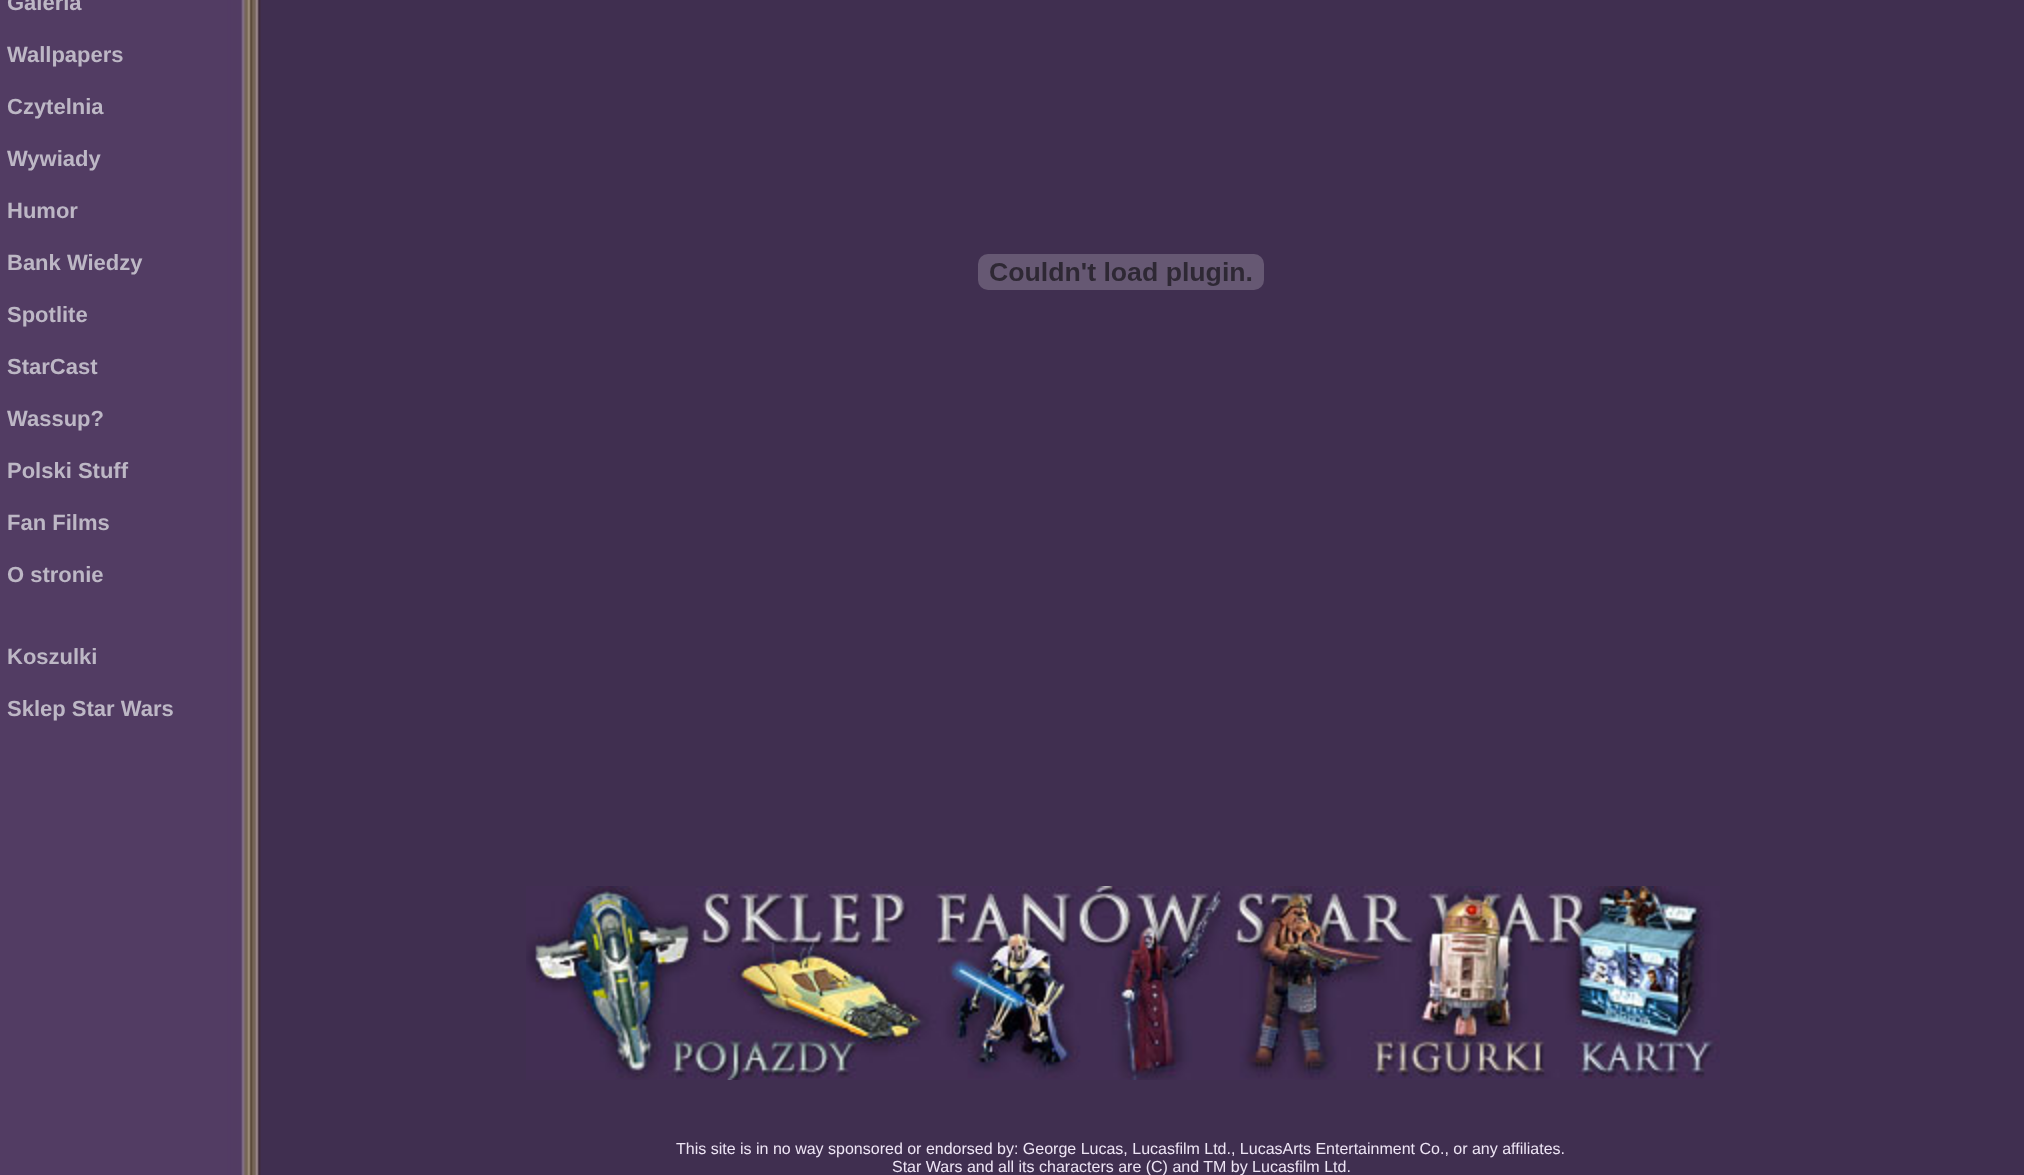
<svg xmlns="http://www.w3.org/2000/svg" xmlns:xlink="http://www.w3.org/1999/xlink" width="2024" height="1175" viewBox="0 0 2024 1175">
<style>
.cls-1{font:bold 22px Liberation Sans;fill:#bdb7c5}
.cls-2{font:16px Liberation Sans;fill:#eee5f5}
</style>
<rect width="100%" height="100%" fill="#402f50"/>
<image xlink:href="image0.png" x="0" y="0" width="261" height="1175"/>
<image xlink:href="image1.png" x="978" y="254" width="286" height="36"/>
<image xlink:href="image2.png" x="526" y="886" width="1194" height="194"/>
<text class="cls-1" x="7" y="10">Galeria</text>
<text class="cls-1" x="7" y="62">Wallpapers</text>
<text class="cls-1" x="7" y="114">Czytelnia</text>
<text class="cls-1" x="7" y="166">Wywiady</text>
<text class="cls-1" x="7" y="218">Humor</text>
<text class="cls-1" x="7" y="270">Bank Wiedzy</text>
<text class="cls-1" x="7" y="322">Spotlite</text>
<text class="cls-1" x="7" y="374">StarCast</text>
<text class="cls-1" x="7" y="426">Wassup?</text>
<text class="cls-1" x="7" y="478">Polski Stuff</text>
<text class="cls-1" x="7" y="530">Fan Films</text>
<text class="cls-1" x="7" y="582">O stronie</text>
<text class="cls-1" x="7" y="664">Koszulki</text>
<text class="cls-1" x="7" y="716">Sklep Star Wars</text>
<text class="cls-2" x="676" y="1154">This site is in no way sponsored or endorsed by: George Lucas, Lucasfilm Ltd., LucasArts Entertainment Co., or any affiliates.</text>
<text class="cls-2" x="892" y="1172">Star Wars and all its characters are (C) and TM by Lucasfilm Ltd.</text>
</svg>
